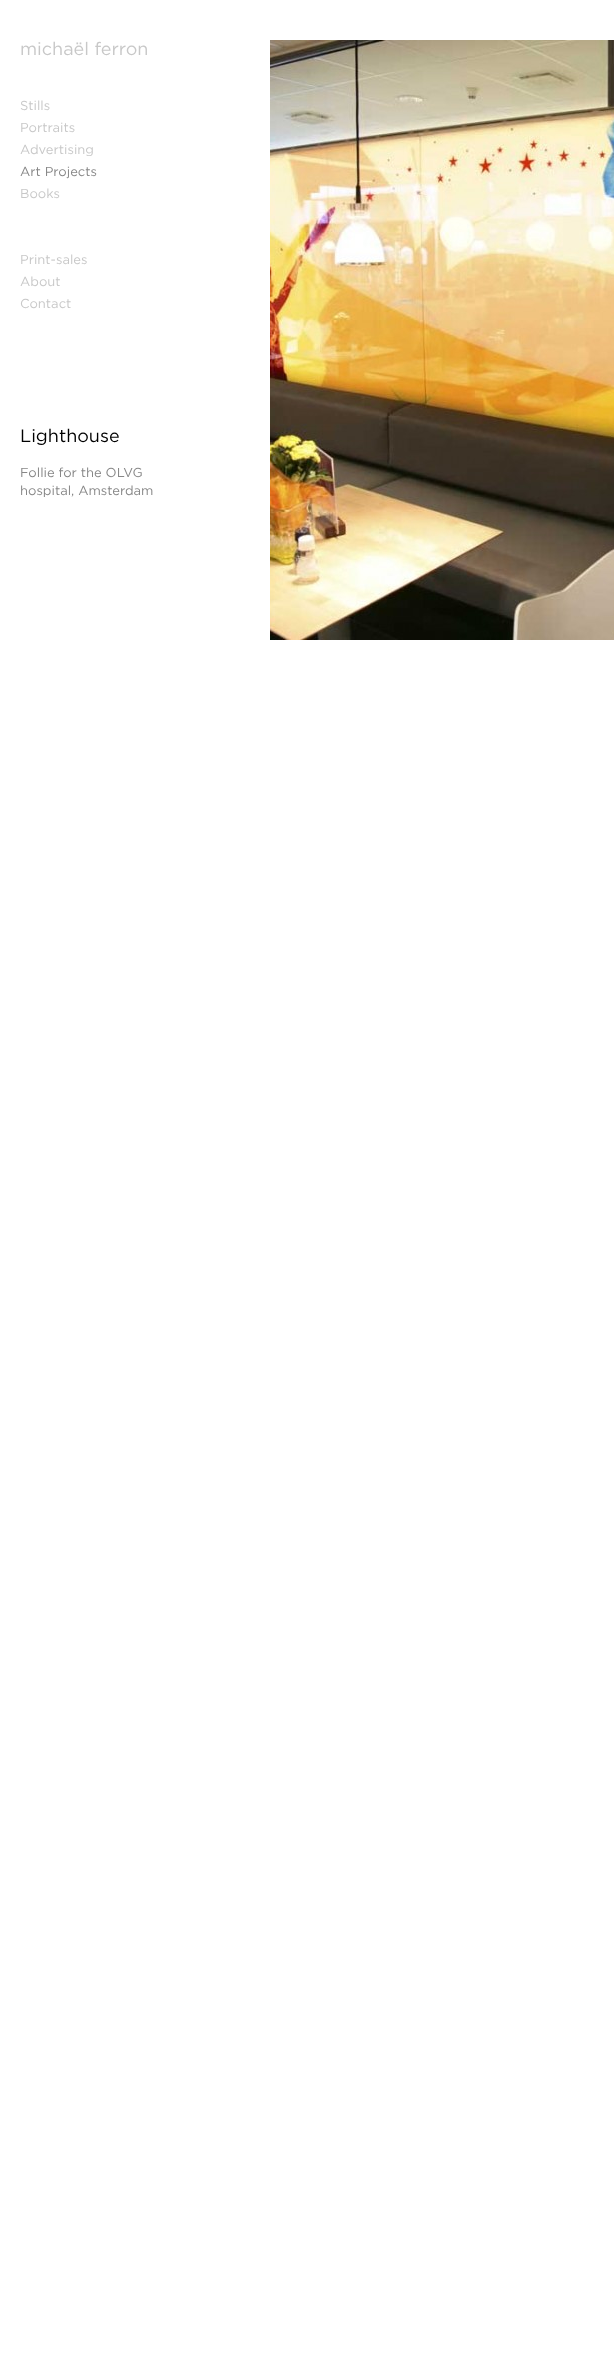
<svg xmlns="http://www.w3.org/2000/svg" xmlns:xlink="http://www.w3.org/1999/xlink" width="614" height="2371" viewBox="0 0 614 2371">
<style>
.cls-1{font:18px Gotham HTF;fill:#c8c8c8}
.cls-2{font:13px Gotham HTF;fill:#c8c8c8}
.cls-3{font:13px Gotham HTF;fill:#878787}
.cls-4{font:18px Gotham HTF;fill:#000000}
</style>
<rect width="100%" height="100%" fill="#ffffff"/>
<image xlink:href="image0.png" x="270" y="40" width="344" height="600"/>
<text class="cls-1" x="20" y="55">michaël ferron</text>
<text class="cls-2"><tspan x="20" y="110">Stills</tspan><tspan x="20" y="132">Portraits</tspan><tspan x="20" y="154">Advertising</tspan></text>
<text class="cls-3" x="20" y="176">Art Projects</text>
<text class="cls-2" x="20" y="198">Books</text>
<text class="cls-2"><tspan x="20" y="264">Print-sales</tspan><tspan x="20" y="286">About</tspan><tspan x="20" y="308">Contact</tspan></text>
<text class="cls-4" x="20" y="442">Lighthouse</text>
<text class="cls-3"><tspan x="20" y="477">Follie for the OLVG</tspan><tspan x="20" y="495">hospital, Amsterdam</tspan></text>
</svg>
